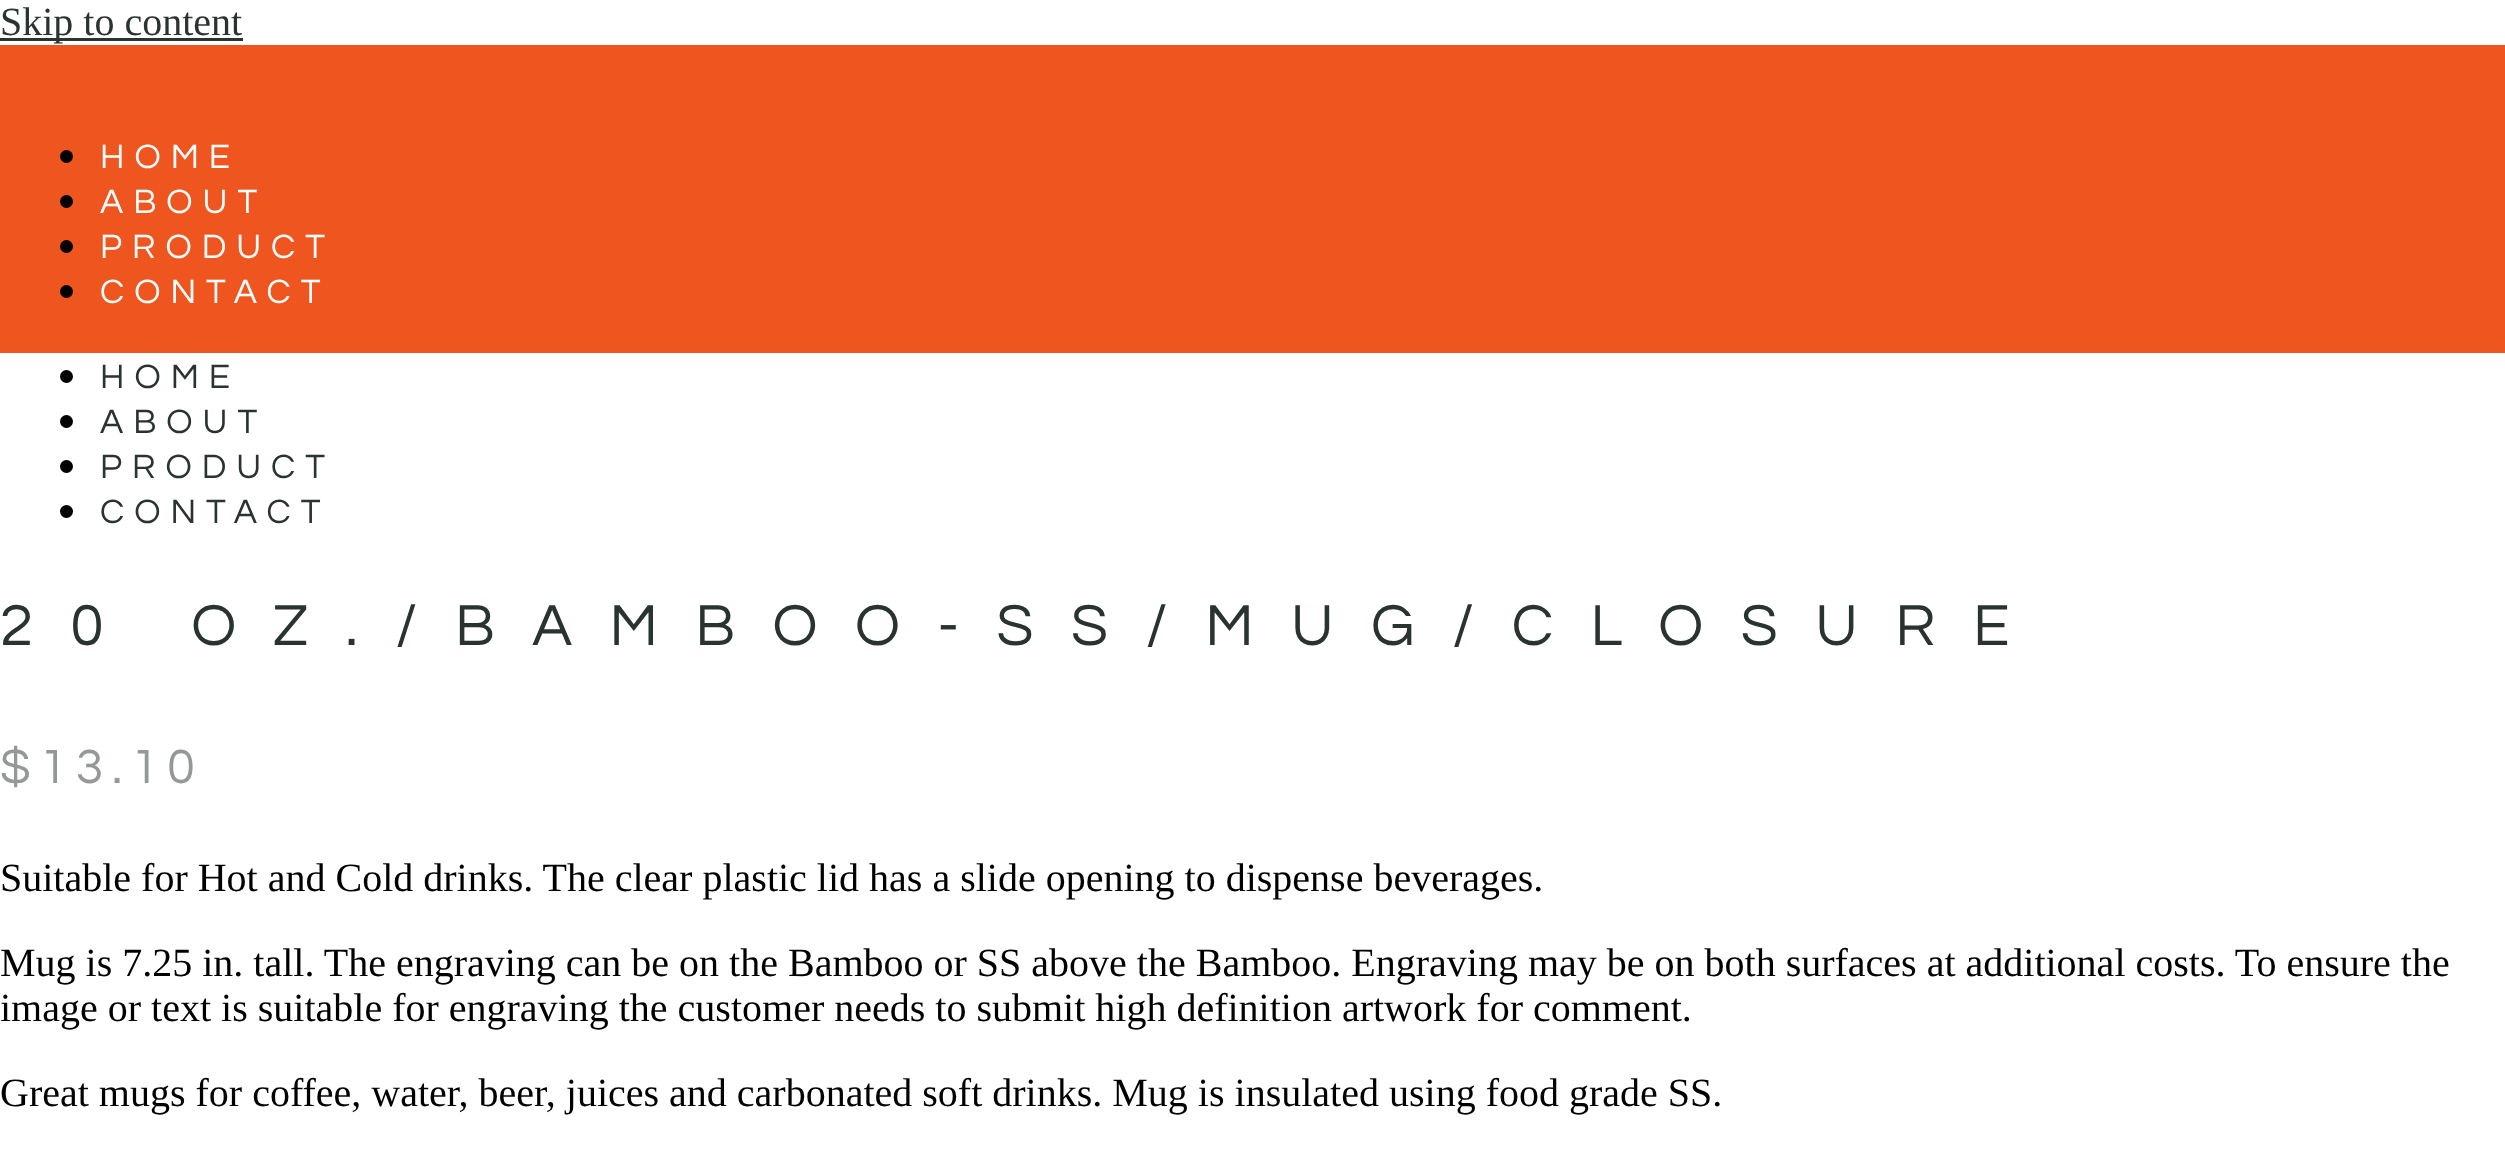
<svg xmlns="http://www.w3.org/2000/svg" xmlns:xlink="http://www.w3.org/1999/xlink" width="2505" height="1167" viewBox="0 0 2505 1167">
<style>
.cls-1{font:40px Liberation Serif;fill:#29332f}
.cls-2{font:35px Questrial;letter-spacing:10px;fill:#ffffff}
.cls-3{font:35px Questrial;letter-spacing:10px;fill:#29332f}
.cls-4{font:60px Questrial;letter-spacing:37.5px;fill:#29332f}
.cls-5{font:50px Questrial;letter-spacing:8.75px;fill:#949997}
.cls-6{font:40px Liberation Serif;fill:#000000}
</style>
<rect width="100%" height="100%" fill="#ffffff"/>
<rect fill="#29332f" x="0" y="38" width="243" height="3"/>
<rect fill="#ee551f" x="0" y="45" width="2505" height="308"/>
<circle fill="#000000" cx="66.5" cy="156.5" r="6.5"/>
<circle fill="#000000" cx="66.5" cy="201.5" r="6.5"/>
<circle fill="#000000" cx="66.5" cy="246.5" r="6.5"/>
<circle fill="#000000" cx="66.5" cy="291.5" r="6.5"/>
<circle fill="#000000" cx="66.5" cy="376.5" r="6.5"/>
<circle fill="#000000" cx="66.5" cy="421.5" r="6.5"/>
<circle fill="#000000" cx="66.5" cy="466.5" r="6.5"/>
<circle fill="#000000" cx="66.5" cy="511.5" r="6.5"/>
<text class="cls-1" x="0" y="35">Skip to content</text>
<text class="cls-2"><tspan x="100" y="168">HOME</tspan><tspan x="100" y="213">ABOUT</tspan><tspan x="100" y="258">PRODUCT</tspan><tspan x="100" y="303">CONTACT</tspan></text>
<text class="cls-3"><tspan x="100" y="388">HOME</tspan><tspan x="100" y="433">ABOUT</tspan><tspan x="100" y="478">PRODUCT</tspan><tspan x="100" y="523">CONTACT</tspan></text>
<text class="cls-4" x="0" y="645">20 OZ./BAMBOO-SS/MUG/CLOSURE</text>
<text class="cls-5" x="0" y="783">$13.10</text>
<text class="cls-6" x="0" y="891">Suitable for Hot and Cold drinks. The clear plastic lid has a slide opening to dispense beverages.</text>
<text class="cls-6"><tspan x="0" y="976">Mug is 7.25 in. tall. The engraving can be on the Bamboo or SS above the Bamboo. Engraving may be on both surfaces at additional costs. To ensure the</tspan><tspan x="0" y="1021">image or text is suitable for engraving the customer needs to submit high definition artwork for comment.</tspan></text>
<text class="cls-6" x="0" y="1106">Great mugs for coffee, water, beer, juices and carbonated soft drinks. Mug is insulated using food grade SS.</text>
</svg>
